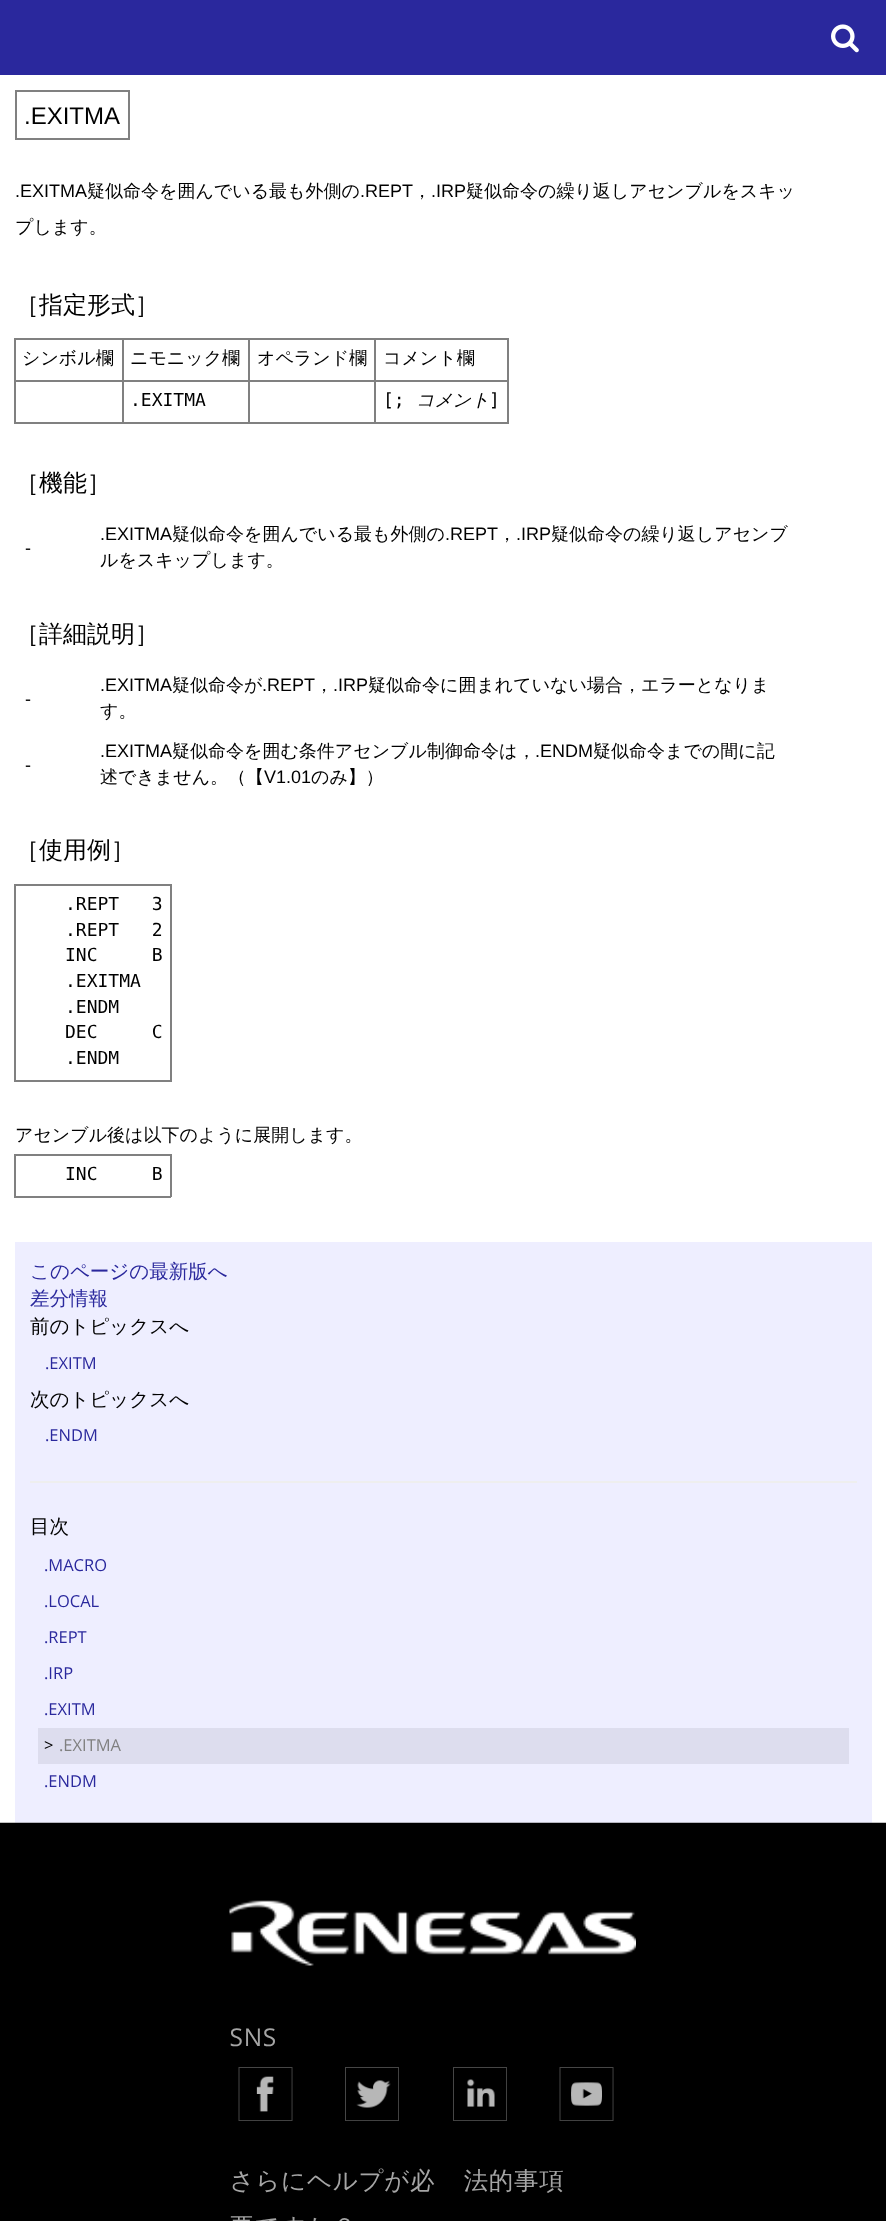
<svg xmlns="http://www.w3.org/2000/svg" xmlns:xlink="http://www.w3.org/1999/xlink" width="886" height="2221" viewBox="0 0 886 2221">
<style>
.cls-1{font:24px Liberation Sans;fill:#000000}
.cls-2{font:18px Liberation Sans;fill:#000000}
.cls-3{font:500 18px WenQuanYi Zen Hei;fill:#000000}
.cls-4{font:500 24px WenQuanYi Zen Hei;fill:#000000}
.cls-5{font:18px DejaVu Sans Mono;fill:#000000}
.cls-6{font:italic 500 18px WenQuanYi Zen Hei;fill:#000000}
.cls-7{font:500 19.5px WenQuanYi Zen Hei;fill:#2a289d}
.cls-8{font:500 19.5px WenQuanYi Zen Hei;fill:#000000}
.cls-9{font:16.5px Open Sans;fill:#2a289d}
.cls-10{font:16.5px Open Sans;fill:#000000}
.cls-11{font:16.5px Open Sans;fill:#808080}
</style>
<rect width="100%" height="100%" fill="#ffffff"/>
<rect fill="#2a289d" x="0" y="0" width="886" height="75"/>
<image xlink:href="image0.png" x="831" y="24" width="28" height="29"/>
<rect fill="#808080" x="15" y="90" width="114" height="2"/>
<rect fill="#808080" x="128" y="90" width="2" height="50"/>
<rect fill="#808080" x="15" y="138" width="114" height="2"/>
<rect fill="#808080" x="15" y="90" width="2" height="50"/>
<rect fill="#808080" x="14" y="338" width="495" height="2"/>
<rect fill="#808080" x="507" y="338" width="2" height="85"/>
<rect fill="#808080" x="14" y="422" width="495" height="2"/>
<rect fill="#808080" x="14" y="338" width="2" height="85"/>
<rect fill="#808080" x="374" y="380" width="135" height="2"/>
<rect fill="#808080" x="374" y="380" width="2" height="43"/>
<rect fill="#808080" x="248" y="380" width="127" height="2"/>
<rect fill="#808080" x="248" y="380" width="2" height="43"/>
<rect fill="#808080" x="122" y="380" width="127" height="2"/>
<rect fill="#808080" x="122" y="380" width="2" height="43"/>
<rect fill="#808080" x="14" y="380" width="109" height="2"/>
<rect fill="#808080" x="122" y="338" width="2" height="43"/>
<rect fill="#808080" x="248" y="338" width="2" height="43"/>
<rect fill="#808080" x="374" y="338" width="2" height="43"/>
<rect fill="#808080" x="14" y="884" width="157" height="2"/>
<rect fill="#808080" x="170" y="884" width="2" height="198"/>
<rect fill="#808080" x="14" y="1080" width="157" height="2"/>
<rect fill="#808080" x="14" y="884" width="2" height="198"/>
<rect fill="#808080" x="14" y="1154" width="157" height="2"/>
<rect fill="#808080" x="170" y="1154" width="2" height="43"/>
<rect fill="#808080" x="14" y="1196" width="157" height="2"/>
<rect fill="#808080" x="14" y="1154" width="2" height="43"/>
<rect fill="#eeeeff" x="15" y="1242" width="857" height="581"/>
<rect fill="#eeeeee" x="30" y="1481" width="827" height="2"/>
<rect fill="#ddddee" x="38" y="1728" width="811" height="36"/>
<image xlink:href="image1.png" x="0" y="1822" width="886" height="399"/>
<text class="cls-1" x="24" y="124">.EXITMA</text>
<text class="cls-2" x="15" y="197">.EXITMA</text>
<text class="cls-3" x="87" y="197">疑似命令を囲んでいる最も外側の</text>
<text class="cls-2" x="360" y="197">.REPT</text>
<text class="cls-3" x="413" y="197">，</text>
<text class="cls-2" x="431" y="197">.IRP</text>
<text class="cls-3" x="466" y="197">疑似命令の繰り返しアセンブルをスキッ</text>
<text class="cls-3" x="15" y="233">プします。</text>
<text class="cls-4" x="15" y="313">［指定形式］</text>
<text class="cls-3" x="22" y="364">シンボル欄</text>
<text class="cls-3" x="130" y="364">ニモニック欄</text>
<text class="cls-3" x="257" y="364">オペランド欄</text>
<text class="cls-3" x="383" y="364">コメント欄</text>
<text class="cls-5" x="130" y="406">.EXITMA</text>
<text class="cls-5" x="383" y="406">[;</text>
<text class="cls-6" x="416" y="406">コメント</text>
<text class="cls-5" x="489" y="406">]</text>
<text class="cls-4" x="15" y="491">［機能］</text>
<text class="cls-2" x="25" y="554">-</text>
<text class="cls-2" x="100" y="540">.EXITMA</text>
<text class="cls-3" x="172" y="540">疑似命令を囲んでいる最も外側の</text>
<text class="cls-2" x="445" y="540">.REPT</text>
<text class="cls-3" x="498" y="540">，</text>
<text class="cls-2" x="516" y="540">.IRP</text>
<text class="cls-3" x="551" y="540">疑似命令の繰り返しアセンブ</text>
<text class="cls-3" x="100" y="566">ルをスキップします。</text>
<text class="cls-4" x="15" y="642">［詳細説明］</text>
<text class="cls-2" x="25" y="705">-</text>
<text class="cls-2" x="100" y="691">.EXITMA</text>
<text class="cls-3" x="172" y="691">疑似命令が</text>
<text class="cls-2" x="262" y="691">.REPT</text>
<text class="cls-3" x="315" y="691">，</text>
<text class="cls-2" x="333" y="691">.IRP</text>
<text class="cls-3" x="368" y="691">疑似命令に囲まれていない場合，エラーとなりま</text>
<text class="cls-3" x="100" y="717">す。</text>
<text class="cls-2" x="25" y="771">-</text>
<text class="cls-2" x="100" y="757">.EXITMA</text>
<text class="cls-3" x="172" y="757">疑似命令を囲む条件アセンブル制御命令は，</text>
<text class="cls-2" x="535" y="757">.ENDM</text>
<text class="cls-3" x="593" y="757">疑似命令までの間に記</text>
<text class="cls-3" x="100" y="783">述できません。（【</text>
<text class="cls-2" x="264" y="783">V1.01</text>
<text class="cls-3" x="311" y="783">のみ】）</text>
<text class="cls-4" x="15" y="858">［使用例］</text>
<text class="cls-5" xml:space="preserve"><tspan x="65" y="910">.REPT   3</tspan><tspan x="65" y="936">.REPT   2</tspan><tspan x="65" y="961">INC     B</tspan><tspan x="65" y="987">.EXITMA</tspan><tspan x="65" y="1013">.ENDM</tspan><tspan x="65" y="1038">DEC     C</tspan><tspan x="65" y="1064">.ENDM</tspan></text>
<text class="cls-3" x="15" y="1141">アセンブル後は以下のように展開します。</text>
<text class="cls-5" xml:space="preserve" x="65" y="1180">INC     B</text>
<text class="cls-7"><tspan x="30" y="1278">このページの最新版へ</tspan><tspan x="30" y="1305">差分情報</tspan></text>
<text class="cls-8" x="30" y="1333">前のトピックスへ</text>
<text class="cls-9" x="45" y="1369">.EXITM</text>
<text class="cls-8" x="30" y="1406">次のトピックスへ</text>
<text class="cls-9" x="45" y="1441">.ENDM</text>
<text class="cls-8" x="30" y="1533">目次</text>
<text class="cls-9" x="44" y="1571">.MACRO</text>
<text class="cls-9" x="44" y="1607">.LOCAL</text>
<text class="cls-9" x="44" y="1643">.REPT</text>
<text class="cls-9" x="44" y="1679">.IRP</text>
<text class="cls-9" x="44" y="1715">.EXITM</text>
<text class="cls-10" x="44" y="1751">&gt;</text>
<text class="cls-11" x="59" y="1751">.EXITMA</text>
<text class="cls-9" x="44" y="1787">.ENDM</text>
</svg>
